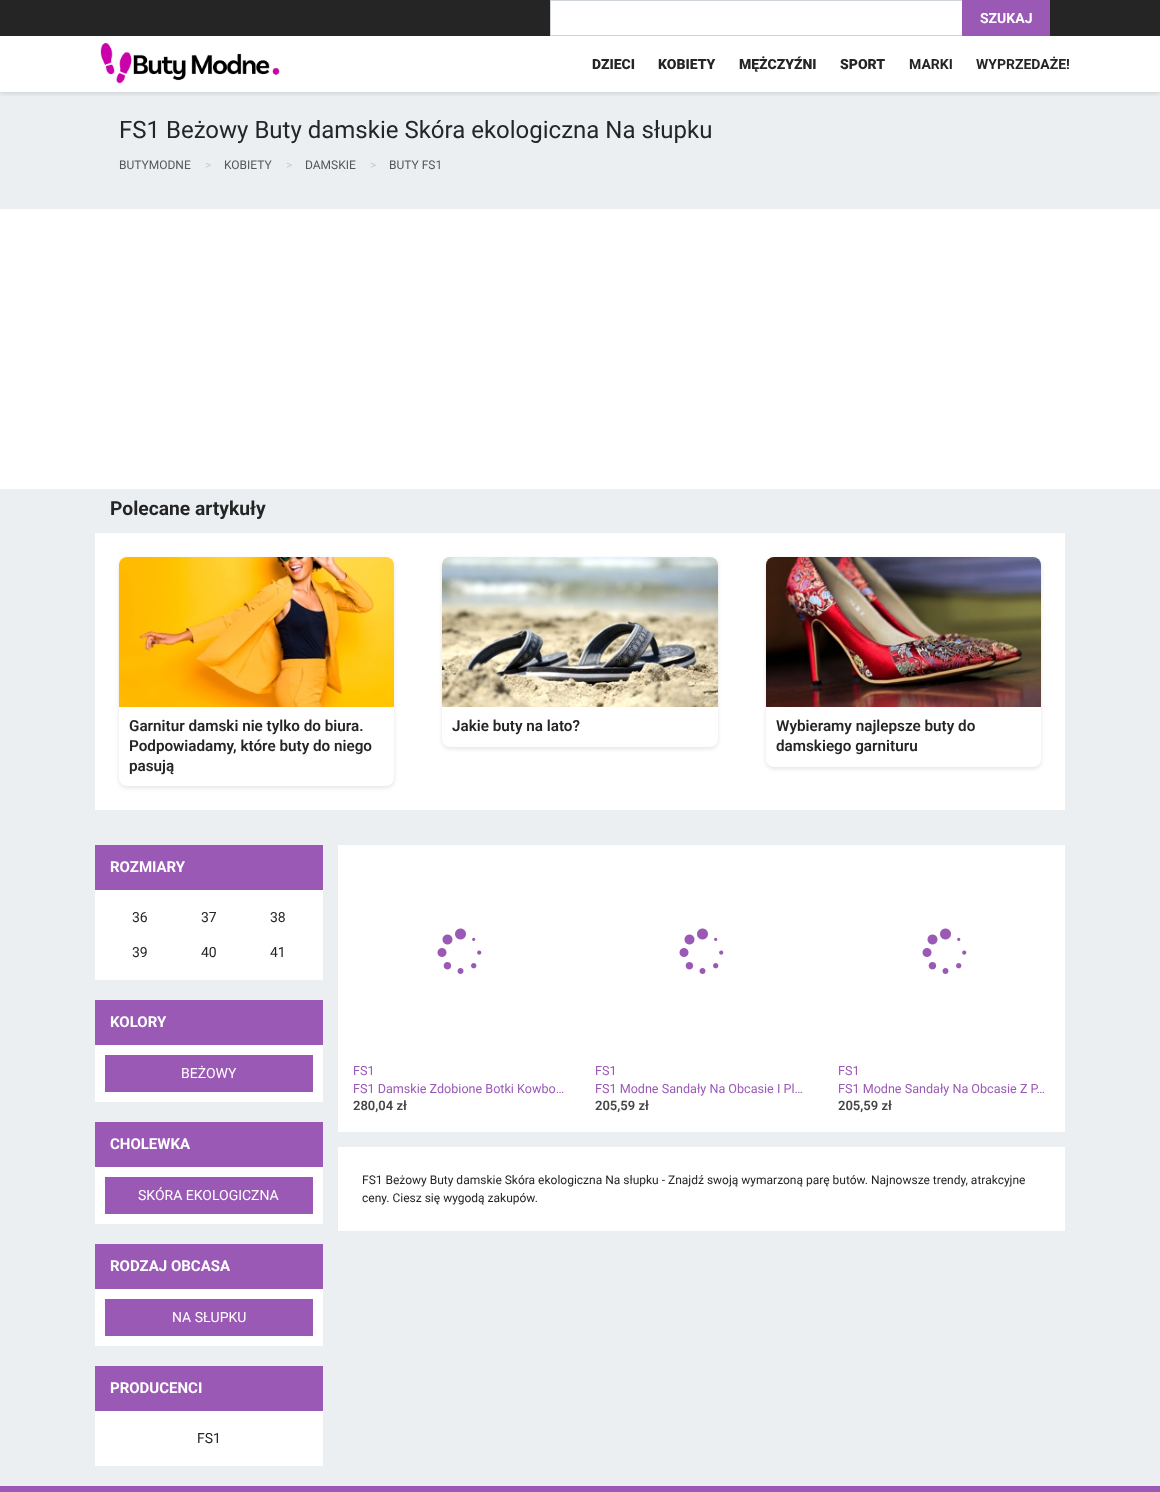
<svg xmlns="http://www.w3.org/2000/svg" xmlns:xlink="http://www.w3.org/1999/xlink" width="1160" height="1492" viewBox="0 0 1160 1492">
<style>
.cls-1{font:bold 14px Roboto;fill:#ffffff}
.cls-2{font:900 14px Roboto;fill:#252525}
.cls-3{font:bold 14px Roboto;fill:#252525}
.cls-4{font:24px Roboto;fill:#252525}
.cls-5{font:12px Roboto;fill:#565656}
.cls-6{font:12px Roboto;fill:#cccccc}
.cls-7{font:bold 19.25px Roboto;fill:#252525}
.cls-8{font:600 15.25px Roboto;fill:#252525}
.cls-9{font:bold 15px Roboto;fill:#ffffff}
.cls-10{font:14px Roboto;fill:#252525}
.cls-11{font:14px Roboto;fill:#ffffff}
.cls-12{font:12.6px Roboto;fill:#9b59b6}
.cls-13{font:600 13px Roboto;fill:#454545}
.cls-14{font:12px Roboto;fill:#252525}
</style>
<defs>
<clipPath id="clip1"><rect x="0" y="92" width="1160" height="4"/></clipPath>
</defs>
<rect width="100%" height="100%" fill="#ffffff"/>
<rect fill="#252525" x="0" y="0" width="1160" height="36"/>
<rect fill="#ffffff" x="551" y="1" width="411" height="34"/>
<rect fill="none" stroke="#ced4da" x="550.5" y="0.5" width="499" height="35"/>
<rect fill="#eceff1" x="0" y="92" width="1160" height="117"/>
<g clip-path="url(#clip1)">
<rect fill="#000000" fill-opacity="0.1" filter="blur(2px)" x="0" y="38" width="1160" height="56"/>
</g>
<rect fill="#9b59b6" x="962" y="0" width="88" height="36"/>
<image xlink:href="image0.png" x="100" y="42" width="180" height="42"/>
<rect fill="#eceff1" x="0" y="489" width="1160" height="997"/>
<rect fill="#ffffff" x="95" y="533" width="970" height="277"/>
<rect fill="#000000" fill-opacity="0.1" filter="blur(2px)" x="119" y="559" width="275" height="229" rx="8"/>
<rect fill="#ffffff" x="119" y="557" width="275" height="229" rx="8"/>
<image xlink:href="image1.png" x="119" y="557" width="275" height="150"/>
<rect fill="#000000" fill-opacity="0.1" filter="blur(2px)" x="442" y="559" width="276" height="190" rx="8"/>
<rect fill="#ffffff" x="442" y="557" width="276" height="190" rx="8"/>
<image xlink:href="image2.png" x="442" y="557" width="276" height="150"/>
<rect fill="#000000" fill-opacity="0.1" filter="blur(2px)" x="766" y="559" width="275" height="210" rx="8"/>
<rect fill="#ffffff" x="766" y="557" width="275" height="210" rx="8"/>
<image xlink:href="image3.png" x="766" y="557" width="275" height="150"/>
<rect fill="#ffffff" x="95" y="890" width="228" height="90"/>
<rect fill="#9b59b6" x="95" y="845" width="228" height="45"/>
<rect fill="#ffffff" x="95" y="1045" width="228" height="57"/>
<rect fill="#9b59b6" x="95" y="1000" width="228" height="45"/>
<rect fill="#9b59b6" x="105" y="1055" width="208" height="37"/>
<rect fill="#ffffff" x="95" y="1167" width="228" height="57"/>
<rect fill="#9b59b6" x="95" y="1122" width="228" height="45"/>
<rect fill="#9b59b6" x="105" y="1177" width="208" height="37"/>
<rect fill="#ffffff" x="95" y="1289" width="228" height="57"/>
<rect fill="#9b59b6" x="95" y="1244" width="228" height="45"/>
<rect fill="#9b59b6" x="105" y="1299" width="208" height="37"/>
<rect fill="#ffffff" x="95" y="1411" width="228" height="55"/>
<rect fill="#9b59b6" x="95" y="1366" width="228" height="45"/>
<rect fill="#ffffff" x="338" y="845" width="727" height="287"/>
<image xlink:href="image4.png" x="437" y="928" width="45" height="46"/>
<image xlink:href="image4.png" x="679" y="928" width="45" height="46"/>
<image xlink:href="image4.png" x="922" y="928" width="45" height="46"/>
<rect fill="#ffffff" x="338" y="1147" width="727" height="84"/>
<rect fill="#9b59b6" x="0" y="1486" width="1160" height="6"/>
<text class="cls-1" x="980" y="23">SZUKAJ</text>
<text class="cls-2" x="592" y="69">DZIECI</text>
<text class="cls-2" x="658" y="69">KOBIETY</text>
<text class="cls-2" x="739" y="69">MĘŻCZYŹNI</text>
<text class="cls-2" x="840" y="69">SPORT</text>
<text class="cls-3" x="909" y="69">MARKI</text>
<text class="cls-3" x="976" y="69">WYPRZEDAŻE!</text>
<text class="cls-4" x="119" y="138">FS1 Beżowy Buty damskie Skóra ekologiczna Na słupku</text>
<text class="cls-5" x="119" y="169">BUTYMODNE</text>
<text class="cls-6" x="205" y="169">&gt;</text>
<text class="cls-5" x="224" y="169">KOBIETY</text>
<text class="cls-6" x="286" y="169">&gt;</text>
<text class="cls-5" x="305" y="169">DAMSKIE</text>
<text class="cls-6" x="370" y="169">&gt;</text>
<text class="cls-5" x="389" y="169">BUTY FS1</text>
<text class="cls-7" x="110" y="515">Polecane artykuły</text>
<text class="cls-8"><tspan x="129" y="731">Garnitur damski nie tylko do biura.</tspan><tspan x="129" y="751">Podpowiadamy, które buty do niego</tspan><tspan x="129" y="771">pasują</tspan></text>
<text class="cls-8" x="452" y="731">Jakie buty na lato?</text>
<text class="cls-8"><tspan x="776" y="731">Wybieramy najlepsze buty do</tspan><tspan x="776" y="751">damskiego garnituru</tspan></text>
<text class="cls-9" x="110" y="872">ROZMIARY</text>
<text class="cls-10" x="132" y="922">36</text>
<text class="cls-10" x="201" y="922">37</text>
<text class="cls-10" x="270" y="922">38</text>
<text class="cls-10" x="132" y="957">39</text>
<text class="cls-10" x="201" y="957">40</text>
<text class="cls-10" x="270" y="957">41</text>
<text class="cls-9" x="110" y="1027">KOLORY</text>
<text class="cls-11" x="181" y="1078">BEŻOWY</text>
<text class="cls-9" x="110" y="1149">CHOLEWKA</text>
<text class="cls-11" x="138" y="1200">SKÓRA EKOLOGICZNA</text>
<text class="cls-9" x="110" y="1271">RODZAJ OBCASA</text>
<text class="cls-11" x="172" y="1322">NA SŁUPKU</text>
<text class="cls-9" x="110" y="1393">PRODUCENCI</text>
<text class="cls-10" x="197" y="1443">FS1</text>
<text class="cls-12"><tspan x="353" y="1075">FS1</tspan><tspan x="353" y="1093">FS1 Damskie Zdobione Botki Kowbo…</tspan></text>
<text class="cls-13" x="353" y="1110">280,04 zł</text>
<text class="cls-12"><tspan x="595" y="1075">FS1</tspan><tspan x="595" y="1093">FS1 Modne Sandały Na Obcasie I Pl…</tspan></text>
<text class="cls-13" x="595" y="1110">205,59 zł</text>
<text class="cls-12"><tspan x="838" y="1075">FS1</tspan><tspan x="838" y="1093">FS1 Modne Sandały Na Obcasie Z P…</tspan></text>
<text class="cls-13" x="838" y="1110">205,59 zł</text>
<text class="cls-14"><tspan x="362" y="1184">FS1 Beżowy Buty damskie Skóra ekologiczna Na słupku - Znajdź swoją wymarzoną parę butów. Najnowsze trendy, atrakcyjne</tspan><tspan x="362" y="1202">ceny. Ciesz się wygodą zakupów.</tspan></text>
</svg>
